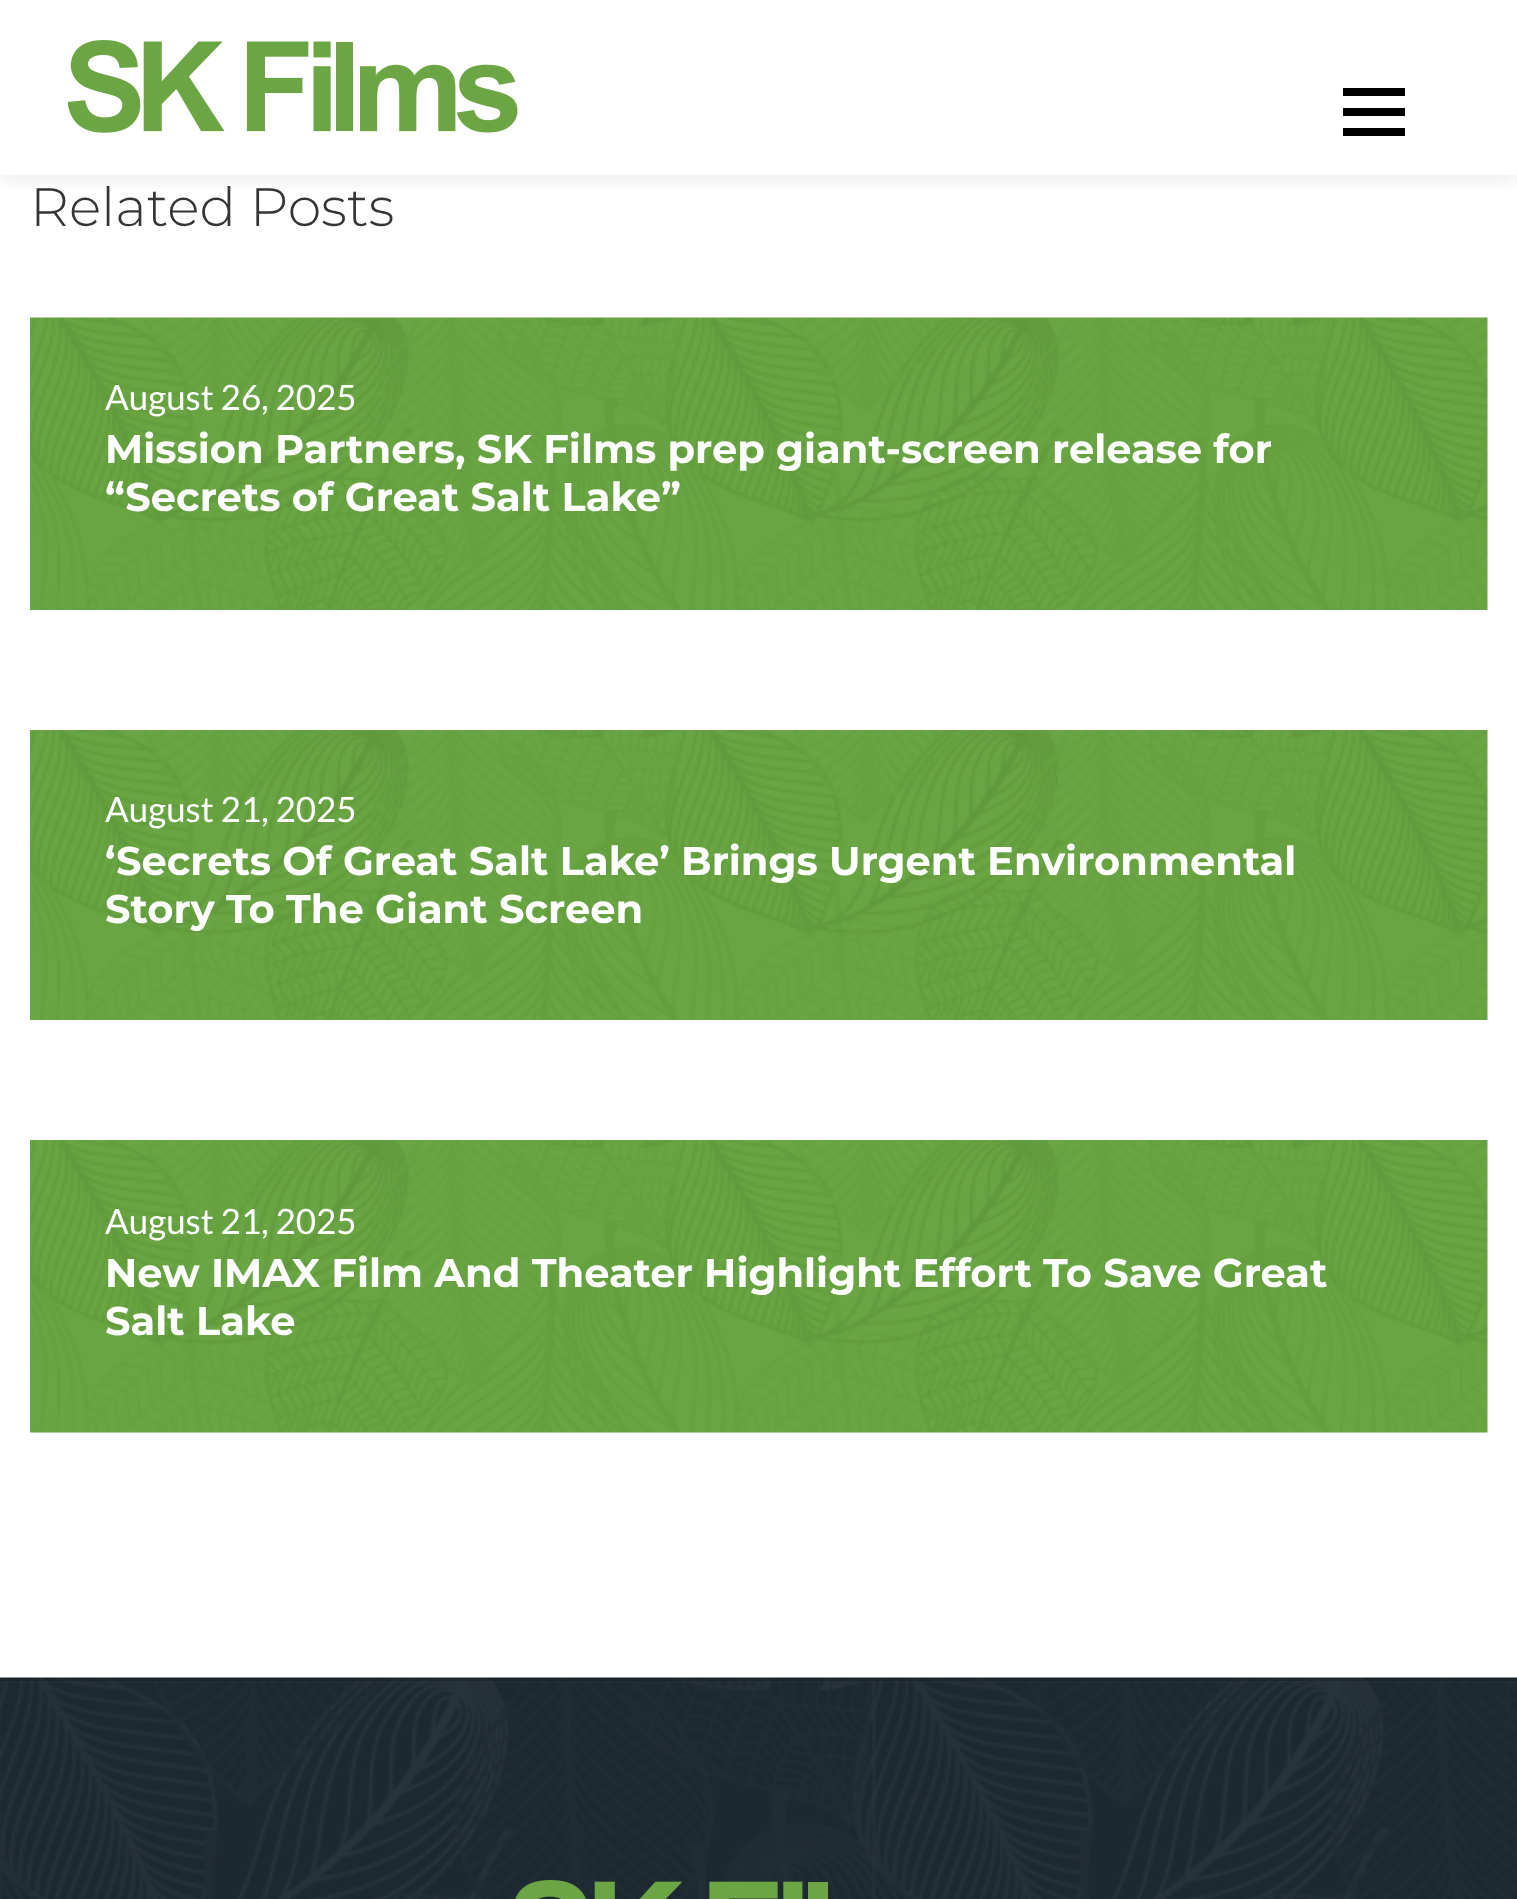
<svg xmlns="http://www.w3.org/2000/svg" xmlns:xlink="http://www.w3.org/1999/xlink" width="1517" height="1899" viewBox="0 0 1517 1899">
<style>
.cls-1{font:300 54px Montserrat;fill:#353535}
.cls-2{font:35px Lato;fill:#ffffff}
.cls-3{font:bold 40px Montserrat;fill:#ffffff}
</style>
<defs>
<clipPath id="clip1"><rect x="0" y="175" width="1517" height="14"/></clipPath>
</defs>
<rect width="100%" height="100%" fill="#ffffff"/>
<g clip-path="url(#clip1)">
<rect fill="#2c2c2c" fill-opacity="0.1" filter="blur(12.5px)" x="0" y="3" width="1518" height="175"/>
</g>
<rect fill="#000000" x="1343" y="108" width="62" height="8"/>
<rect fill="#000000" x="1343" y="88" width="62" height="8"/>
<rect fill="#000000" x="1343" y="128" width="62" height="8"/>
<image xlink:href="image0.png" x="68" y="40" width="450" height="93"/>
<image xlink:href="image1.png" x="30" y="317" width="1458" height="293"/>
<image xlink:href="image2.png" x="30" y="730" width="1458" height="290"/>
<image xlink:href="image3.png" x="30" y="1140" width="1458" height="293"/>
<image xlink:href="image4.png" x="0" y="1677" width="1517" height="222"/>
<rect fill="#000000" fill-opacity="0.2" x="0" y="1678" width="1517" height="3"/>
<image xlink:href="image5.png" x="515" y="1880" width="313" height="19"/>
<text class="cls-1" x="30" y="226">Related Posts</text>
<text class="cls-2" x="105" y="410">August 26, 2025</text>
<text class="cls-3"><tspan x="105" y="463">Mission Partners, SK Films prep giant-screen release for</tspan><tspan x="105" y="511">“Secrets of Great Salt Lake”</tspan></text>
<text class="cls-2" x="105" y="822">August 21, 2025</text>
<text class="cls-3"><tspan x="105" y="875">‘Secrets Of Great Salt Lake’ Brings Urgent Environmental</tspan><tspan x="105" y="923">Story To The Giant Screen</tspan></text>
<text class="cls-2" x="105" y="1234">August 21, 2025</text>
<text class="cls-3"><tspan x="105" y="1287">New IMAX Film And Theater Highlight Effort To Save Great</tspan><tspan x="105" y="1335">Salt Lake</tspan></text>
</svg>
